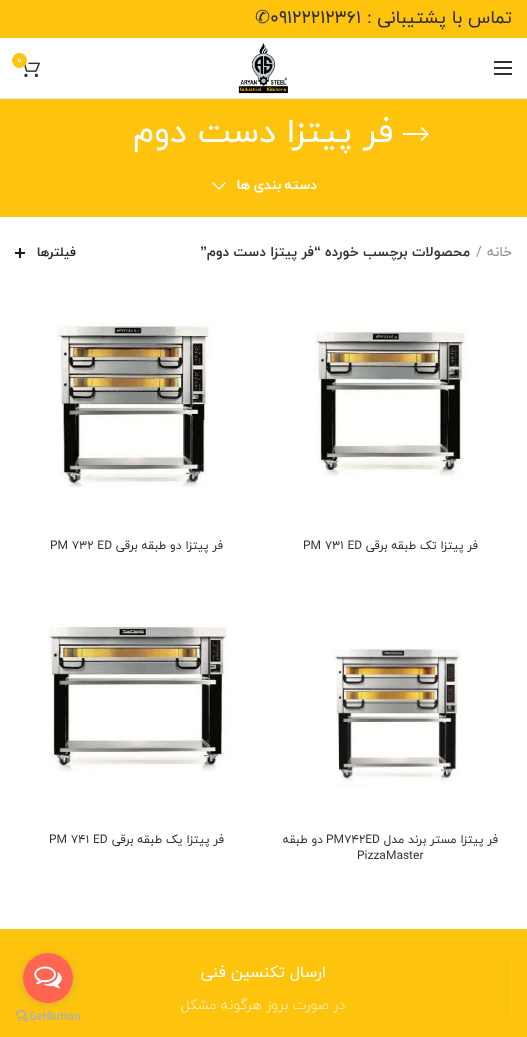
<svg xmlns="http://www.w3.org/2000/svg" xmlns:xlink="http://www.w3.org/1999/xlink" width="527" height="1037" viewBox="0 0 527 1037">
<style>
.cls-1{font:18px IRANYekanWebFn;direction:rtl;fill:#2d2a2a}
.cls-2{font:18px IRANYekanWebFn;fill:#2d2a2a}
.cls-3{font:18px DejaVu Sans;fill:#2d2a2a}
.cls-4{font:10px IRANYekanWebFn;fill:#ffffff}
.cls-5{font:34px IRANYekanWebFn;direction:rtl;fill:#ffffff}
.cls-6{font:bold 14px IRANYekanWebFn;letter-spacing:0.25px;direction:rtl;fill:#ffffff}
.cls-7{font:14px IRANYekanWebFn;direction:rtl;fill:#8e8e8e}
.cls-8{font:14px IRANYekanWebFn;fill:#8e8e8e}
.cls-9{font:bold 14px IRANYekanWebFn;direction:rtl;fill:#333333}
.cls-10{font:bold 14px Liberation Sans;direction:rtl;fill:#333333}
.cls-11{font:bold 13px IRANYekanWebFn;letter-spacing:0.5px;direction:rtl;fill:#2d2a2a}
.cls-12{font:12px IRANYekanWebFn;direction:rtl;fill:#333333}
.cls-13{font:12px IRANYekanWebFn;fill:#333333}
.cls-14{font:16px IRANYekanWebFn;direction:rtl;fill:#ffffff}
.cls-15{font:300 14px IRANYekanWebFn;direction:rtl;fill:#fff3cf}
</style>
<rect width="100%" height="100%" fill="#ffffff"/>
<rect fill="#fec30d" x="0" y="0" width="527" height="38"/>
<rect fill="#e8e8e8" x="0" y="98" width="527" height="1"/>
<image xlink:href="image0.png" x="238" y="43" width="50" height="51"/>
<image xlink:href="image1.png" x="24" y="62" width="16" height="16"/>
<circle fill="#fec30d" cx="19.5" cy="60.5" r="7.5"/>
<rect fill="#333333" x="494" y="67" width="18" height="2"/>
<rect fill="#333333" x="494" y="61" width="18" height="2"/>
<rect fill="#333333" x="494" y="73" width="18" height="2"/>
<rect fill="#fec30d" x="0" y="99" width="527" height="118"/>
<path fill="#ffffff" d="M422 127L420.5 128L426 133H403V135H426L420.5 140L422 141L429 134Z"/>
<image xlink:href="image2.png" x="212" y="182" width="14" height="8"/>
<rect fill="#1b1919" x="19" y="248" width="2" height="10"/>
<rect fill="#1b1919" x="15" y="252" width="10" height="2"/>
<image xlink:href="image3.png" x="313" y="327" width="156" height="150"/>
<image xlink:href="image4.png" x="55" y="323" width="168" height="165"/>
<image xlink:href="image5.png" x="333" y="647" width="128" height="140"/>
<image xlink:href="image6.png" x="47" y="622" width="183" height="150"/>
<rect fill="#fec30d" x="0" y="929" width="527" height="108"/>
<rect fill="#fec925" x="511" y="959" width="1" height="58"/>
<image xlink:href="image8.png" x="16" y="1010" width="64" height="11"/>
<rect fill="#888888" fill-opacity="0.4" filter="blur(3.5px)" x="23" y="954" width="50" height="50" rx="25"/>
<circle fill="#ff6550" cx="48" cy="978" r="25"/>
<image xlink:href="image7.png" x="34" y="966" width="28" height="23"/>
<text class="cls-1" x="512" y="23">تماس با پشتیبانی :</text>
<text class="cls-2" x="270" y="23">۰۹۱۲۲۲۱۲۳۶۱</text>
<text class="cls-3" x="255" y="23">✆</text>
<text class="cls-4" x="17" y="63">0</text>
<text class="cls-5" x="393" y="142">فر پیتزا دست دوم</text>
<text class="cls-6" x="317" y="189" word-spacing="-1">دسته بندی ها</text>
<text class="cls-7" x="512" y="256">خانه</text>
<text class="cls-8" x="476" y="256">/</text>
<text class="cls-9" x="470" y="256">محصولات برچسب خورده</text>
<text class="cls-10" x="321" y="256">“</text>
<text class="cls-9" x="314" y="256">فر پیتزا دست دوم</text>
<text class="cls-10" x="207" y="256">”</text>
<text class="cls-11" x="76" y="256">فیلترها</text>
<text class="cls-12" x="478" y="549">فر پیتزا تک طبقه برقی</text>
<text class="cls-13" x="303" y="549">PM 731 ED</text>
<text class="cls-12" x="223" y="549">فر پیتزا دو طبقه برقی</text>
<text class="cls-13" x="50" y="549">PM 73۲ ED</text>
<text class="cls-12" x="498" y="843">فر پیتزا مستر برند مدل</text>
<text class="cls-13" x="326" y="843">PM742ED</text>
<text class="cls-12" x="323" y="843">دو طبقه</text>
<text class="cls-13" x="357" y="859">PizzaMaster</text>
<text class="cls-12" x="224" y="843">فر پیتزا یک طبقه برقی</text>
<text class="cls-13" x="49" y="843">PM 741 ED</text>
<text class="cls-14" x="326" y="977">ارسال تکنسین فنی</text>
<text class="cls-15" x="345" y="1009">در صورت بروز هرگونه مشکل</text>
</svg>
